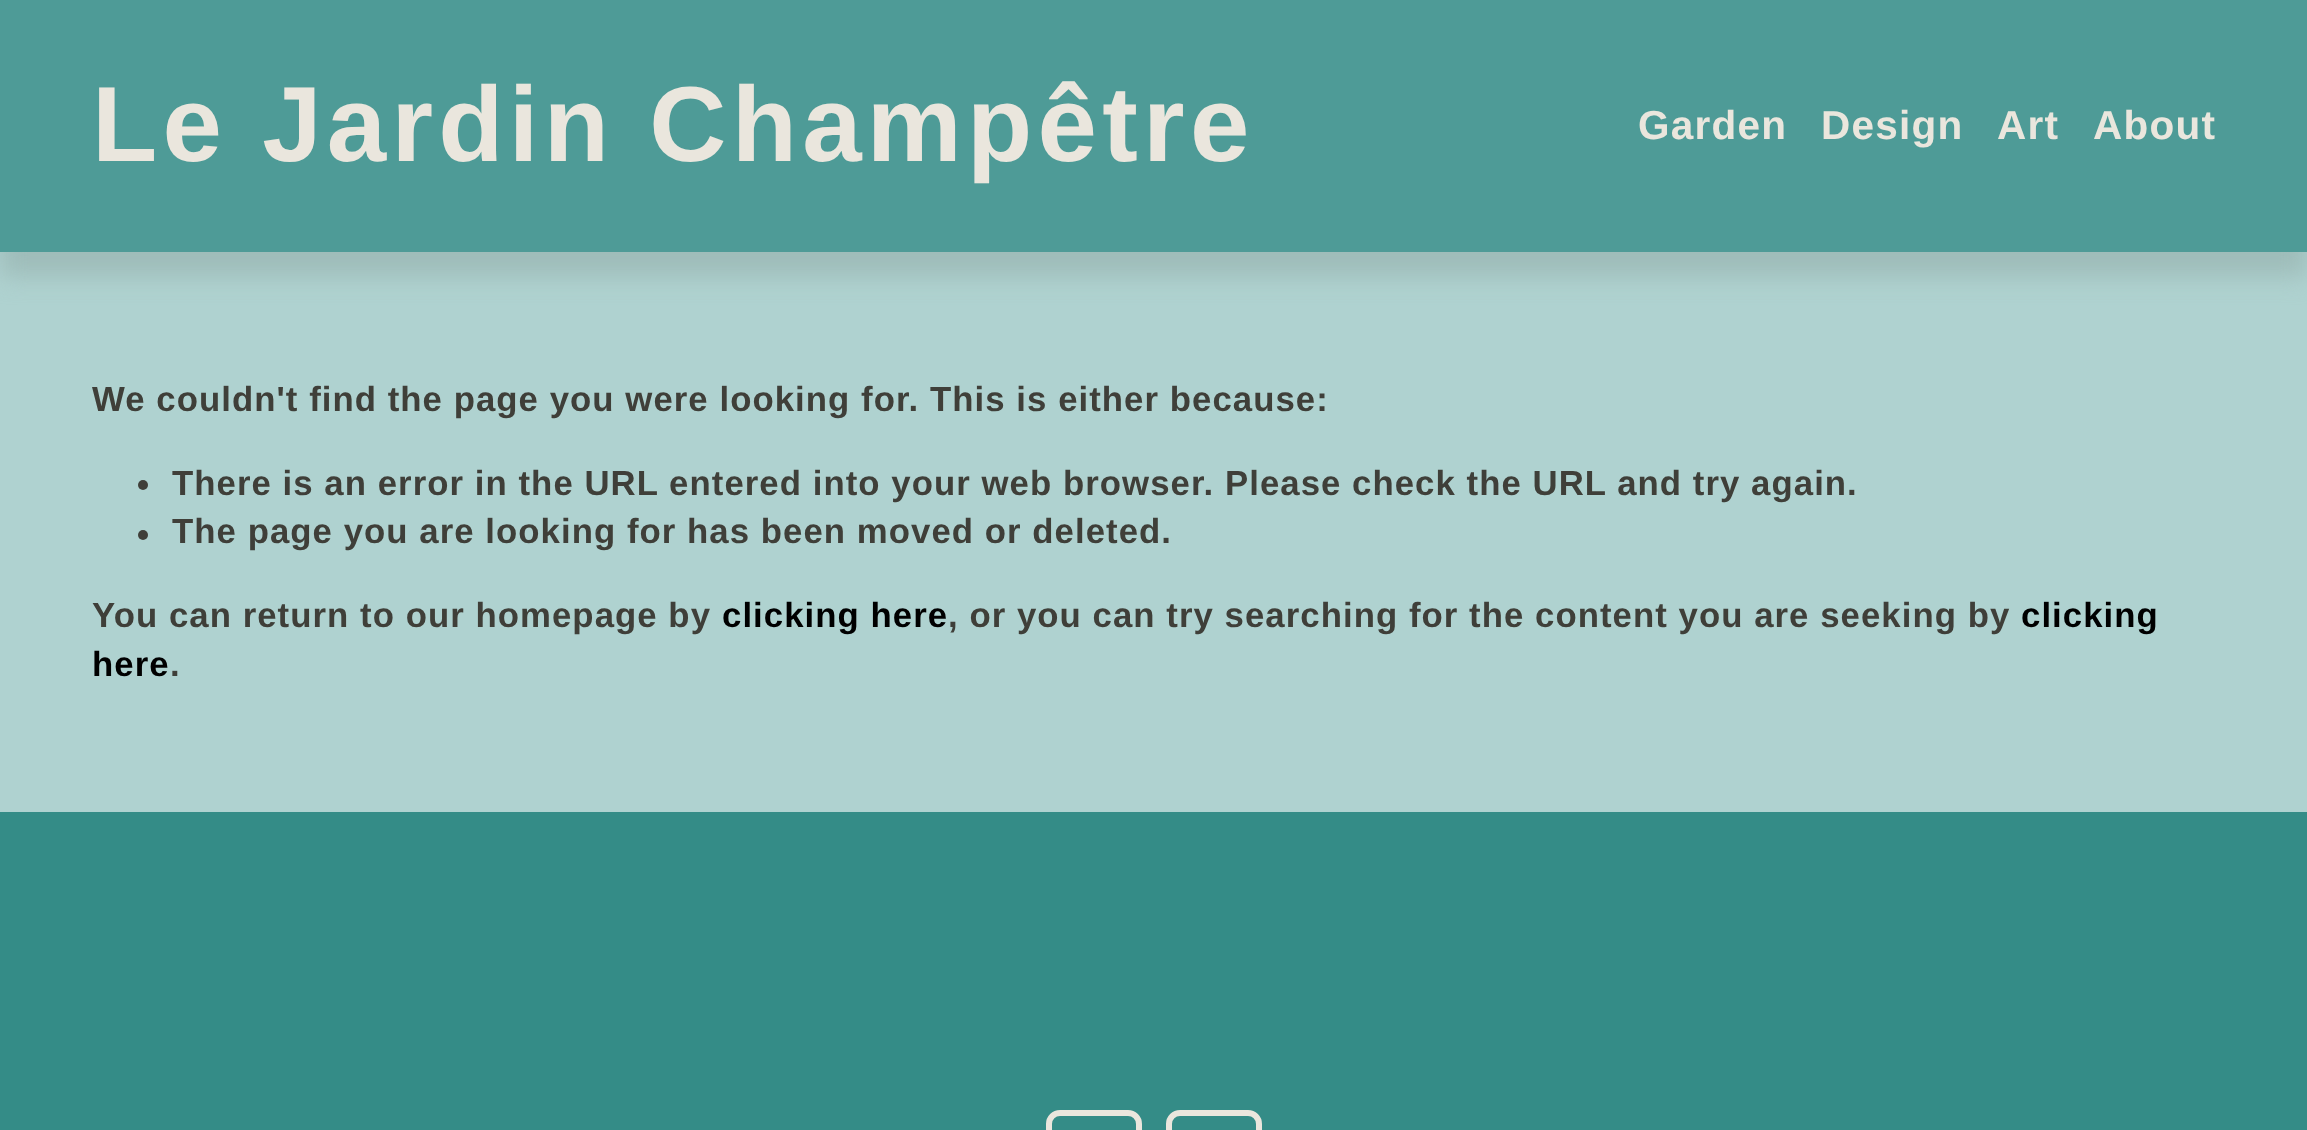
<svg xmlns="http://www.w3.org/2000/svg" xmlns:xlink="http://www.w3.org/1999/xlink" width="2307" height="1130" viewBox="0 0 2307 1130">
<style>
.cls-1{font:bold 106.75px Liberation Sans;letter-spacing:5.3px;fill:#eae6dd}
.cls-2{font:bold 40.5px Liberation Sans;letter-spacing:1.25px;fill:#eae6dd}
.cls-3{font:bold 34.75px Liberation Sans;letter-spacing:1.05px;fill:#3f3f39}
.cls-4{font:bold 34.75px Liberation Sans;letter-spacing:1.05px;fill:#000000}
</style>
<rect width="100%" height="100%" fill="#afd2d0"/>
<rect fill="#9ebcb9" filter="blur(12px)" x="0" y="24" width="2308" height="252"/>
<rect fill="#4e9b97" x="0" y="0" width="2307" height="252"/>
<circle fill="#3f3f39" cx="143" cy="485" r="5"/>
<circle fill="#3f3f39" cx="143" cy="535" r="5"/>
<rect fill="#348c87" x="0" y="812" width="2307" height="318"/>
<rect fill="none" stroke="#eae6dd" stroke-width="6" x="1049" y="1113" width="90" height="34" rx="11"/>
<rect fill="none" stroke="#eae6dd" stroke-width="6" x="1169" y="1113" width="90" height="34" rx="11"/>
<text class="cls-1" x="92" y="161">Le Jardin Champêtre</text>
<text class="cls-2" x="1638" y="139">Garden</text>
<text class="cls-2" x="1821" y="139">Design</text>
<text class="cls-2" x="1997" y="139">Art</text>
<text class="cls-2" x="2093" y="139">About</text>
<text class="cls-3" x="92" y="411">We couldn't find the page you were looking for. This is either because:</text>
<text class="cls-3"><tspan x="172" y="495">There is an error in the URL entered into your web browser. Please check the URL and try again.</tspan><tspan x="172" y="543">The page you are looking for has been moved or deleted.</tspan></text>
<text class="cls-3" x="92" y="627">You can return to our homepage by</text>
<text class="cls-4" x="722" y="627">clicking here</text>
<text class="cls-3" x="948" y="627">, or you can try searching for the</text>
<text class="cls-3" x="1535" y="627">content you are seeking by</text>
<text class="cls-4" x="2021" y="627">clicking</text>
<text class="cls-4" x="92" y="676">here</text>
<text class="cls-3" x="170" y="676">.</text>
</svg>
